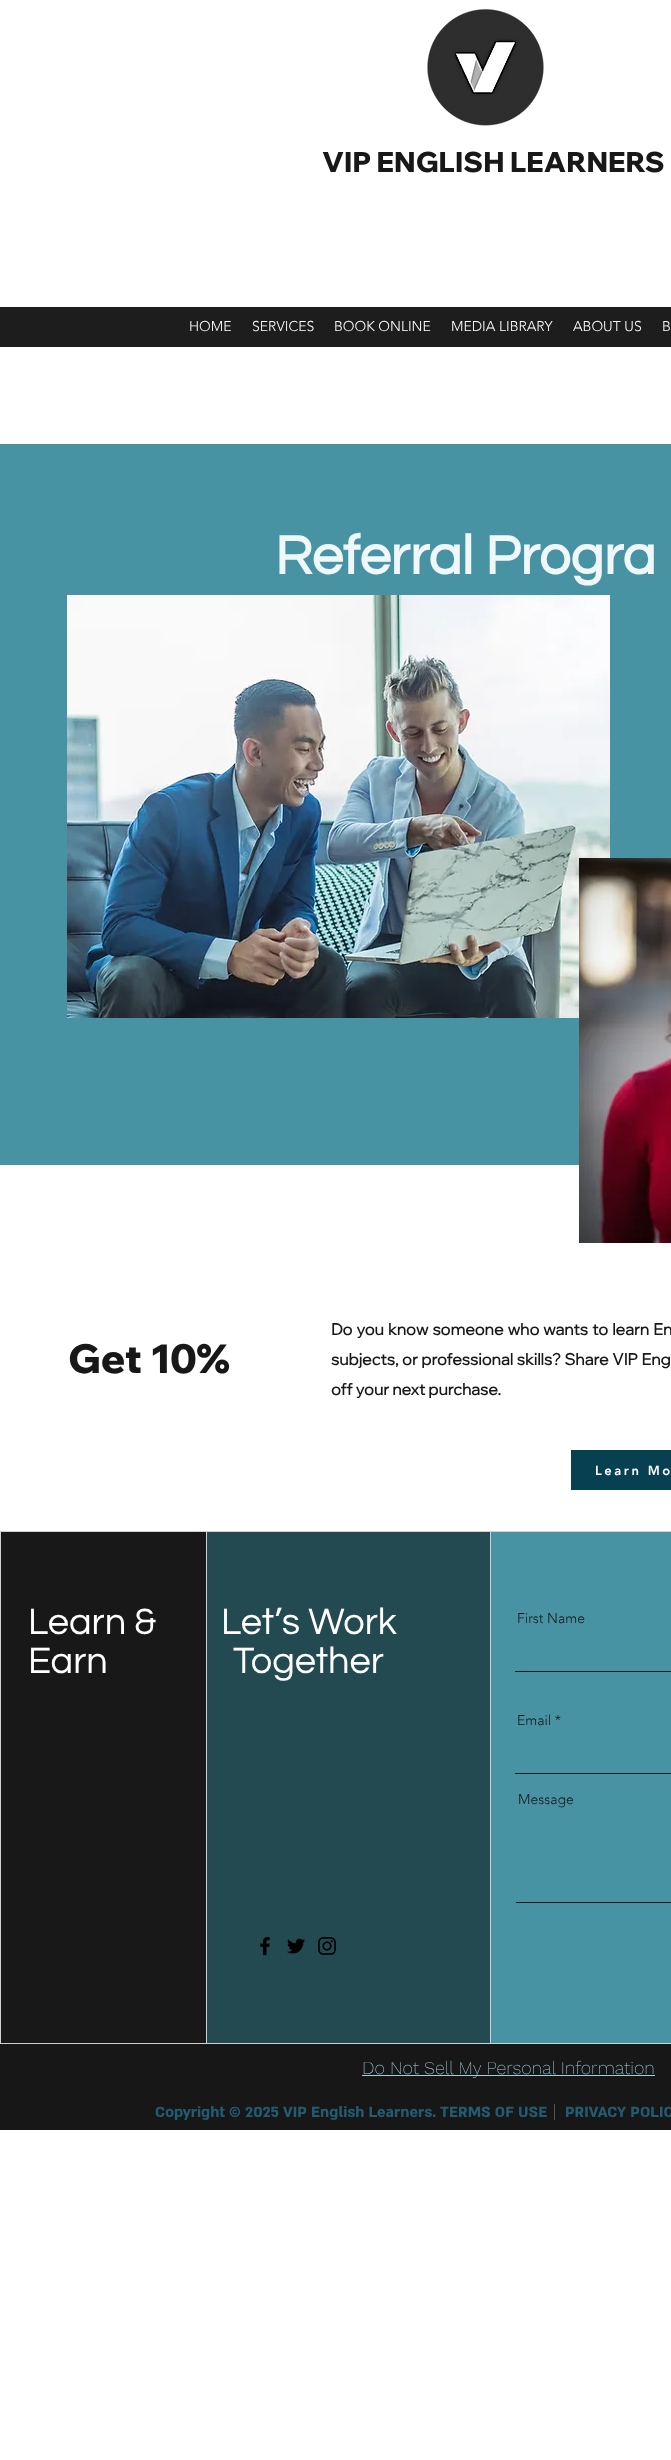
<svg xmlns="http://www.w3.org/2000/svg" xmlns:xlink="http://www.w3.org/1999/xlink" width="671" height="2460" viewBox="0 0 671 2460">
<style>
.cls-1{font:800 28px Wix Madefor Display;fill:#181818}
.cls-2{font:300 14px 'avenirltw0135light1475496';fill:#ffffff}
.cls-3{font:bold 56px Questrial;fill:#f0f7f9}
.cls-4{font:800 40px Wix Madefor Display;fill:#181818}
.cls-5{font:bold 16px Wix Madefor Display;fill:#181818}
.cls-6{font:900 13px 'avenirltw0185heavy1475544';letter-spacing:2.5px;fill:#ffffff}
.cls-7{font:38px Questrial;fill:#ffffff}
.cls-8{font:300 14px 'avenirltw0135light1475496';fill:#181818}
.cls-9{font:200 18px Work Sans;fill:#a3d1e2}
.cls-10{font:bold 17px 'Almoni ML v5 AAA';fill:#235b71}
</style>
<rect width="100%" height="100%" fill="#ffffff"/>
<image xlink:href="image0.png" x="427" y="9" width="117" height="117"/>
<rect fill="#1d1d1d" x="0" y="307" width="671" height="40"/>
<rect fill="#4793a3" x="0" y="444" width="671" height="721"/>
<image xlink:href="image1.png" x="67" y="595" width="543" height="423"/>
<image xlink:href="image2.png" x="579" y="858" width="92" height="385"/>
<rect fill="#074151" x="571" y="1450" width="100" height="40"/>
<rect fill="#d1d1d1" x="0" y="1531" width="671" height="513"/>
<rect fill="#181818" x="1" y="1532" width="205" height="511"/>
<rect fill="#234951" x="207" y="1532" width="283" height="511"/>
<image xlink:href="image3.png" x="260" y="1937" width="10" height="19"/>
<image xlink:href="image4.png" x="287" y="1938" width="18" height="16"/>
<image xlink:href="image5.png" x="318" y="1937" width="18" height="18"/>
<rect fill="#4793a3" x="491" y="1532" width="180" height="511"/>
<rect fill="#181818" x="515" y="1671" width="156" height="1"/>
<rect fill="#181818" x="515" y="1773" width="156" height="1"/>
<rect fill="#181818" x="516" y="1902" width="155" height="1"/>
<rect fill="#171717" x="0" y="2044" width="671" height="86"/>
<rect fill="#a3d1e2" x="362" y="2075" width="293" height="1"/>
<rect fill="#525252" x="554" y="2104" width="1" height="16"/>
<text class="cls-1" x="322" y="172">VIP ENGLISH LEARNERS</text>
<text class="cls-2" x="189" y="331">HOME</text>
<text class="cls-2" x="252" y="331">SERVICES</text>
<text class="cls-2" x="334" y="331">BOOK ONLINE</text>
<text class="cls-2" x="451" y="331">MEDIA LIBRARY</text>
<text class="cls-2" x="573" y="331">ABOUT US</text>
<text class="cls-2" x="662" y="331">B</text>
<text class="cls-3" x="275" y="574">Referral Progra</text>
<text class="cls-4" x="68" y="1373">Get 10%</text>
<text class="cls-5"><tspan x="331" y="1335" word-spacing="1">Do you know someone who wants to learn En</tspan><tspan x="331" y="1365" word-spacing="0.5">subjects, or professional skills? Share VIP Eng</tspan><tspan x="331" y="1395">off your next purchase.</tspan></text>
<text class="cls-6" x="595" y="1475">Learn Mo</text>
<text class="cls-7"><tspan x="28" y="1634">Learn &amp;</tspan><tspan x="28" y="1673">Earn</tspan></text>
<text class="cls-7" x="221" y="1634">Let’s Work</text>
<text class="cls-7" x="233" y="1673">Together</text>
<text class="cls-8" x="517" y="1623">First Name</text>
<text class="cls-8" x="517" y="1725">Email *</text>
<text class="cls-8" x="518" y="1804">Message</text>
<text class="cls-9" x="362" y="2074">Do Not Sell My Personal Information</text>
<text class="cls-10" x="155" y="2117">Copyright © 2025 VIP English Learners. TERMS OF USE</text>
<text class="cls-10" x="565" y="2117">PRIVACY POLIC</text>
</svg>
